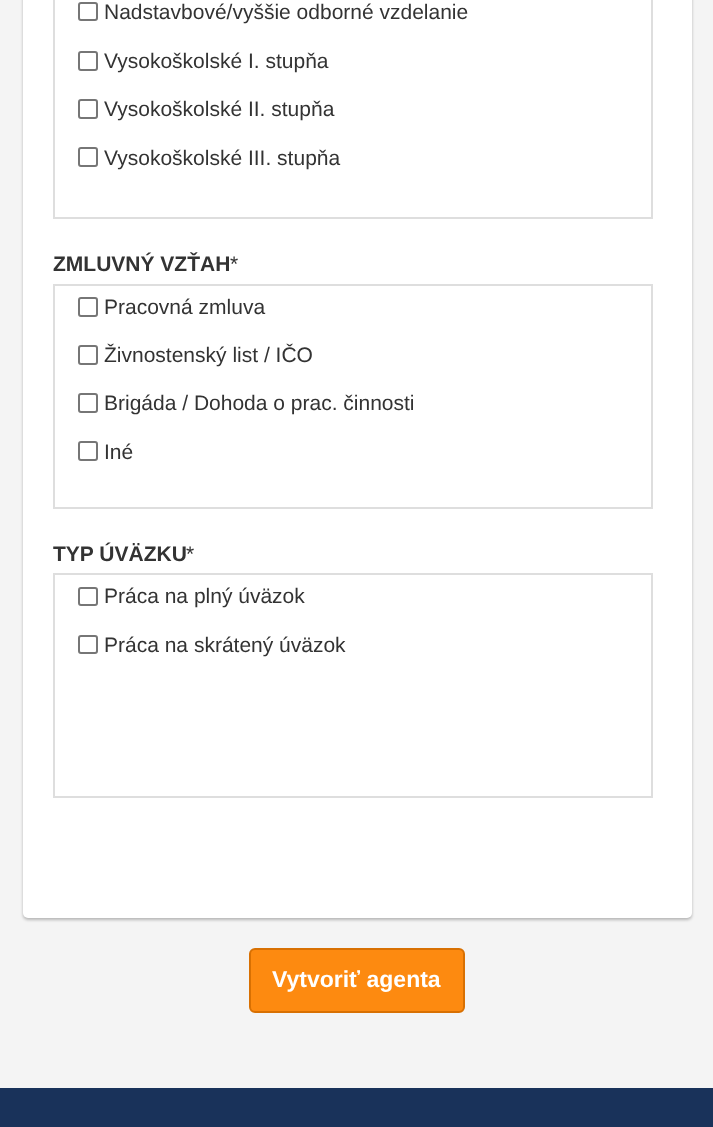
<svg xmlns="http://www.w3.org/2000/svg" xmlns:xlink="http://www.w3.org/1999/xlink" width="713" height="1127" viewBox="0 0 713 1127">
<style>
.cls-1{font:21px Liberation Sans;fill:#333333}
.cls-2{font:bold 21px Liberation Sans;fill:#333333}
.cls-3{font:bold 23px Liberation Sans;fill:#ffffff}
</style>
<rect width="100%" height="100%" fill="#f4f4f4"/>
<rect fill="#000000" fill-opacity="0.25" filter="blur(1.5px)" x="23" y="-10" width="669" height="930" rx="5"/>
<rect fill="#ffffff" x="23" y="-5" width="669" height="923" rx="5"/>
<rect fill="none" stroke="#dedede" stroke-width="2" x="54" y="-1" width="598" height="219"/>
<rect fill="none" stroke="#767676" stroke-width="2" x="79" y="3" width="18" height="17" rx="2"/>
<rect fill="none" stroke="#767676" stroke-width="2" x="79" y="52" width="18" height="18" rx="2"/>
<rect fill="none" stroke="#767676" stroke-width="2" x="79" y="100" width="18" height="18" rx="2"/>
<rect fill="none" stroke="#767676" stroke-width="2" x="79" y="148" width="18" height="18" rx="2"/>
<rect fill="none" stroke="#dedede" stroke-width="2" x="54" y="285" width="598" height="223"/>
<rect fill="none" stroke="#767676" stroke-width="2" x="79" y="298" width="18" height="18" rx="2"/>
<rect fill="none" stroke="#767676" stroke-width="2" x="79" y="346" width="18" height="18" rx="2"/>
<rect fill="none" stroke="#767676" stroke-width="2" x="79" y="394" width="18" height="18" rx="2"/>
<rect fill="none" stroke="#767676" stroke-width="2" x="79" y="442" width="18" height="18" rx="2"/>
<rect fill="none" stroke="#dedede" stroke-width="2" x="54" y="574" width="598" height="223"/>
<rect fill="none" stroke="#767676" stroke-width="2" x="79" y="588" width="18" height="17" rx="2"/>
<rect fill="none" stroke="#767676" stroke-width="2" x="79" y="636" width="18" height="17" rx="2"/>
<rect fill="#fd8a10" stroke="#d87002" stroke-width="2" x="250" y="949" width="214" height="63" rx="5"/>
<rect fill="#19325a" x="0" y="1088" width="713" height="39"/>
<text class="cls-1" x="104" y="19">Nadstavbové/vyššie odborné vzdelanie</text>
<text class="cls-1" x="104" y="68">Vysokoškolské I. stupňa</text>
<text class="cls-1" x="104" y="116">Vysokoškolské II. stupňa</text>
<text class="cls-1" x="104" y="165">Vysokoškolské III. stupňa</text>
<text class="cls-2" x="53" y="271">ZMLUVNÝ VZŤAH</text>
<text class="cls-1" x="230" y="271">*</text>
<text class="cls-1" x="104" y="314">Pracovná zmluva</text>
<text class="cls-1" x="104" y="362">Živnostenský list / IČO</text>
<text class="cls-1" x="104" y="410">Brigáda / Dohoda o prac. činnosti</text>
<text class="cls-1" x="104" y="459">Iné</text>
<text class="cls-2" x="53" y="561">TYP ÚVÄZKU</text>
<text class="cls-1" x="186" y="561">*</text>
<text class="cls-1" x="104" y="603">Práca na plný úväzok</text>
<text class="cls-1" x="104" y="652">Práca na skrátený úväzok</text>
<text class="cls-3" x="272" y="987">Vytvoriť agenta</text>
</svg>
